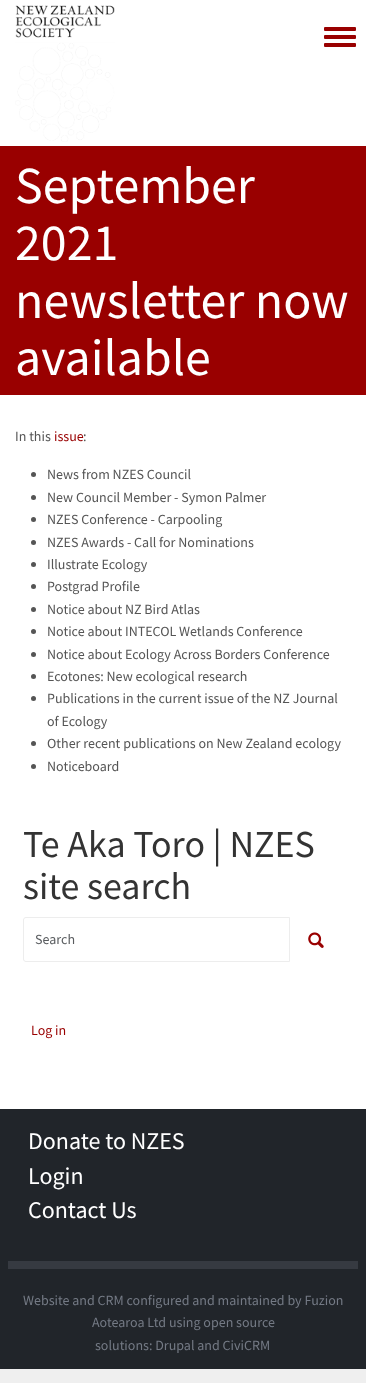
<svg xmlns="http://www.w3.org/2000/svg" xmlns:xlink="http://www.w3.org/1999/xlink" width="366" height="1383" viewBox="0 0 366 1383">
<style>
.cls-1{font:52px Source Sans Pro;fill:#ffffff}
.cls-2{font:14px Source Sans Pro;fill:#555555}
.cls-3{font:14px Source Sans Pro;fill:#990000}
.cls-4{font:38px Source Sans Pro;fill:#333333}
.cls-5{font:14px Source Sans Pro;fill:#595c5f}
.cls-6{font:24px Source Sans Pro;fill:#ffffff}
.cls-7{font:14px Source Sans Pro;fill:#747a85}
</style>
<rect width="100%" height="100%" fill="#efefef"/>
<rect fill="#ffffff" x="0" y="0" width="366" height="1109"/>
<image xlink:href="image0.png" x="15" y="5" width="100" height="137"/>
<rect fill="#990000" x="324" y="35" width="32" height="4" rx="1"/>
<rect fill="#990000" x="324" y="27" width="32" height="4" rx="1"/>
<rect fill="#990000" x="324" y="43" width="32" height="4" rx="1"/>
<rect fill="#990000" x="0" y="146" width="366" height="249"/>
<circle fill="#555555" cx="33.5" cy="474.5" r="2.5"/>
<circle fill="#555555" cx="33.5" cy="497.5" r="2.5"/>
<circle fill="#555555" cx="33.5" cy="519.5" r="2.5"/>
<circle fill="#555555" cx="33.5" cy="542.5" r="2.5"/>
<circle fill="#555555" cx="33.5" cy="564.5" r="2.5"/>
<circle fill="#555555" cx="33.5" cy="586.5" r="2.5"/>
<circle fill="#555555" cx="33.5" cy="609.5" r="2.5"/>
<circle fill="#555555" cx="33.5" cy="631.5" r="2.5"/>
<circle fill="#555555" cx="33.5" cy="654.5" r="2.5"/>
<circle fill="#555555" cx="33.5" cy="676.5" r="2.5"/>
<circle fill="#555555" cx="33.5" cy="698.5" r="2.5"/>
<circle fill="#555555" cx="33.5" cy="743.5" r="2.5"/>
<circle fill="#555555" cx="33.5" cy="766.5" r="2.5"/>
<path fill="none" stroke="#ededed" d="M26 917.5H289.5V961.5H26C24.5 961.5 23.5 960.5 23.5 959V920C23.5 918.5 24.5 917.5 26 917.5Z"/>
<image xlink:href="image1.png" x="308" y="932" width="16" height="16"/>
<rect fill="#21252a" x="0" y="1109" width="366" height="260"/>
<rect fill="#363a41" x="8" y="1261" width="350" height="8"/>
<text class="cls-1"><tspan x="15" y="203">September</tspan><tspan x="15" y="260">2021</tspan><tspan x="15" y="318">newsletter now</tspan><tspan x="15" y="375">available</tspan></text>
<text class="cls-2" x="15" y="441">In this</text>
<text class="cls-3" x="54" y="441">issue</text>
<text class="cls-2" x="83" y="441">:</text>
<text class="cls-2"><tspan x="47" y="479">News from NZES Council</tspan><tspan x="47" y="502">New Council Member - Symon Palmer</tspan><tspan x="47" y="524">NZES Conference - Carpooling</tspan><tspan x="47" y="547">NZES Awards - Call for Nominations</tspan><tspan x="47" y="569">Illustrate Ecology</tspan><tspan x="47" y="591">Postgrad Profile</tspan><tspan x="47" y="614">Notice about NZ Bird Atlas</tspan><tspan x="47" y="636">Notice about INTECOL Wetlands Conference</tspan><tspan x="47" y="659">Notice about Ecology Across Borders Conference</tspan><tspan x="47" y="681">Ecotones: New ecological research</tspan><tspan x="47" y="703">Publications in the current issue of the NZ Journal</tspan><tspan x="47" y="726">of Ecology</tspan><tspan x="47" y="748">Other recent publications on New Zealand ecology</tspan><tspan x="47" y="771">Noticeboard</tspan></text>
<text class="cls-4"><tspan x="23" y="857">Te Aka Toro | NZES</tspan><tspan x="23" y="899">site search</tspan></text>
<text class="cls-5" x="35" y="944">Search</text>
<text class="cls-3" x="31" y="1035">Log in</text>
<text class="cls-6"><tspan x="28" y="1149">Donate to NZES</tspan><tspan x="28" y="1184">Login</tspan><tspan x="28" y="1218">Contact Us</tspan></text>
<text class="cls-7" x="23" y="1305">Website and CRM configured and maintained by Fuzion</text>
<text class="cls-7" x="92" y="1327">Aotearoa Ltd using open source</text>
<text class="cls-7" x="95" y="1350">solutions: Drupal and CiviCRM</text>
</svg>
